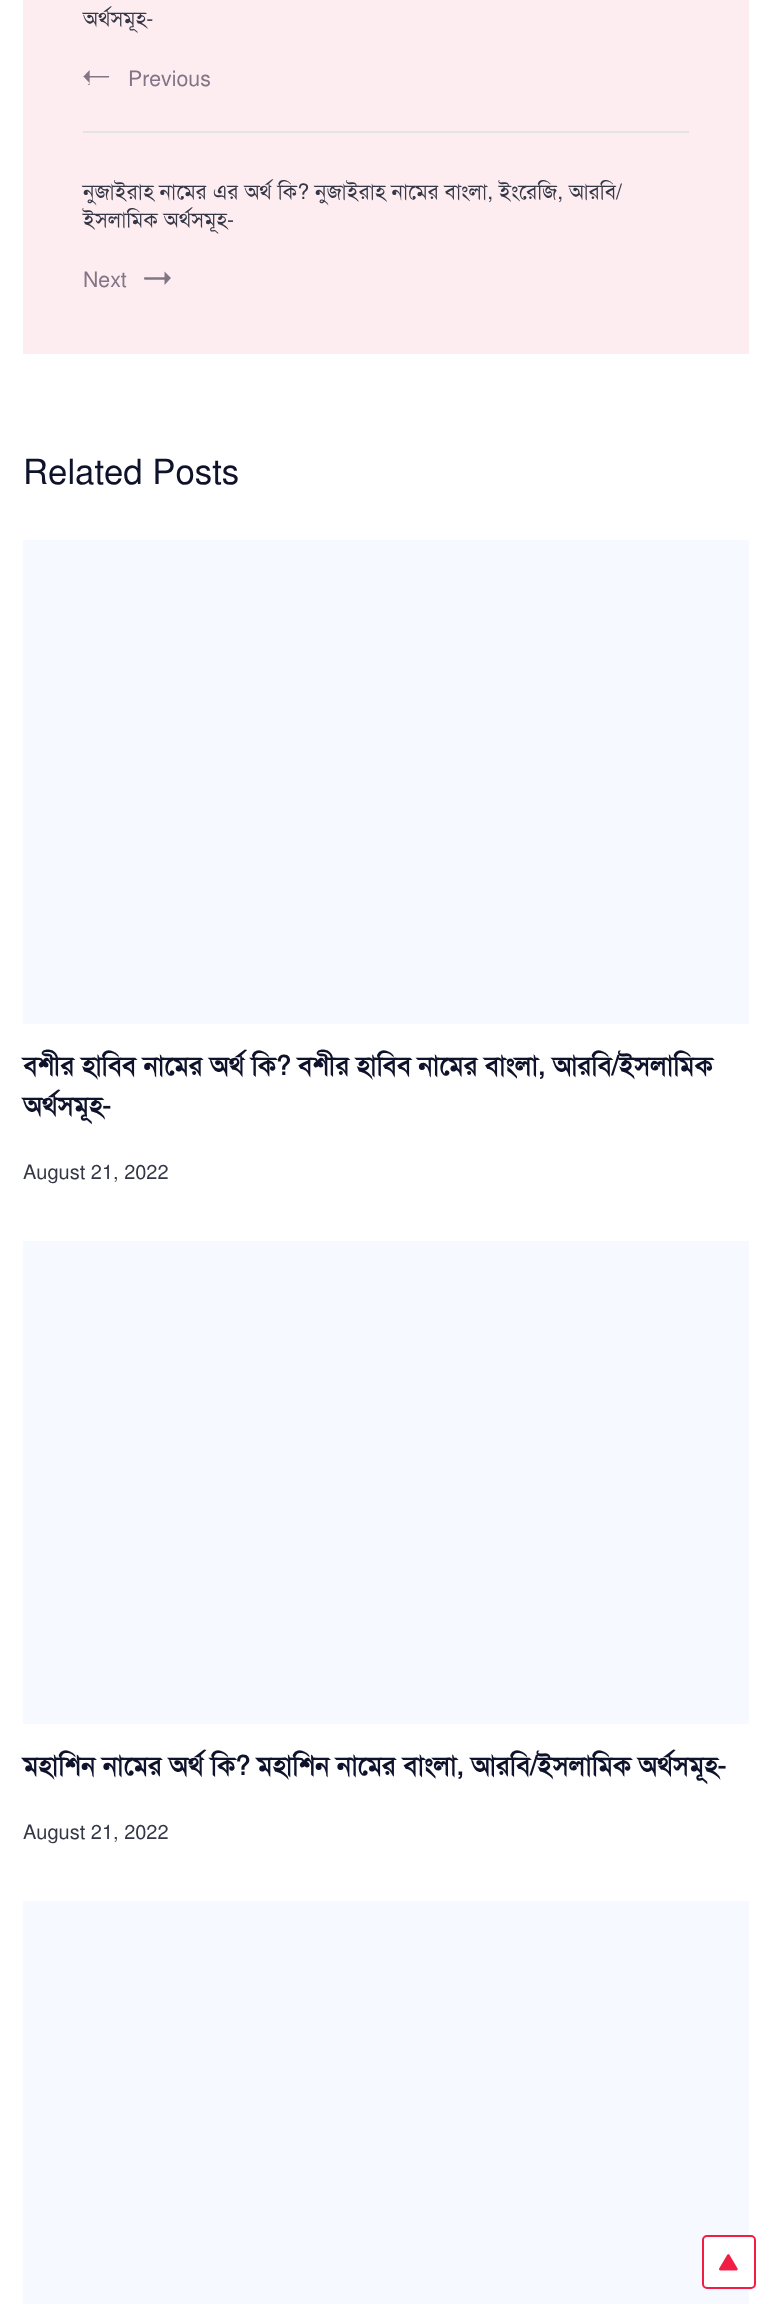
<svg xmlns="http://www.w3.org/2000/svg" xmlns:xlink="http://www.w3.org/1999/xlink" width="771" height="2304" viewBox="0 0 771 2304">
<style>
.cls-1{font:21.3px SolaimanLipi;fill:#343746}
.cls-2{font:21.3px SolaimanLipi;fill:#827586}
.cls-3{font:34.75px SolaimanLipi;fill:#0e132b}
.cls-4{font:bold 26.65px SolaimanLipi;fill:#0e132b}
.cls-5{font:20px SolaimanLipi;fill:#343746}
</style>
<rect width="100%" height="100%" fill="#ffffff"/>
<rect fill="#feedf0" x="23" y="0" width="726" height="354"/>
<image xlink:href="image0.png" x="82" y="70" width="28" height="15"/>
<rect fill="#e4e4e4" x="83" y="131" width="606" height="2"/>
<path fill="#827586" d="M164.5 285L171 278L164.5 271.5Z"/>
<path fill="none" stroke="#827586" stroke-width="2.3" stroke-linecap="round" d="M145 278.5H167"/>
<rect fill="#f6f9ff" x="23" y="540" width="726" height="484"/>
<rect fill="#f6f9ff" x="23" y="1241" width="726" height="483"/>
<rect fill="#f6f9ff" x="23" y="1901" width="726" height="403"/>
<rect fill="#ffffff" stroke="#f21d44" stroke-width="2" x="703" y="2236" width="52" height="52" rx="4"/>
<image xlink:href="image1.png" x="719" y="2254" width="19" height="17"/>
<text class="cls-1" x="83" y="26">অর্থসমূহ-</text>
<text class="cls-2" x="128" y="86">Previous</text>
<text class="cls-1"><tspan x="83" y="199">নুজাইরাহ নামের এর অর্থ কি? নুজাইরাহ নামের বাংলা, ইংরেজি, আরবি/</tspan><tspan x="83" y="227">ইসলামিক অর্থসমূহ-</tspan></text>
<text class="cls-2" x="83" y="287">Next</text>
<text class="cls-3" x="23" y="484">Related Posts</text>
<text class="cls-4"><tspan x="23" y="1075">বশীর হাবিব নামের অর্থ কি? বশীর হাবিব নামের বাংলা, আরবি/ইসলামিক</tspan><tspan x="23" y="1115">অর্থসমূহ-</tspan></text>
<text class="cls-5" x="23" y="1179">August 21, 2022</text>
<text class="cls-4" x="23" y="1775">মহাশিন নামের অর্থ কি? মহাশিন নামের বাংলা, আরবি/ইসলামিক অর্থসমূহ-</text>
<text class="cls-5" x="23" y="1839">August 21, 2022</text>
</svg>
